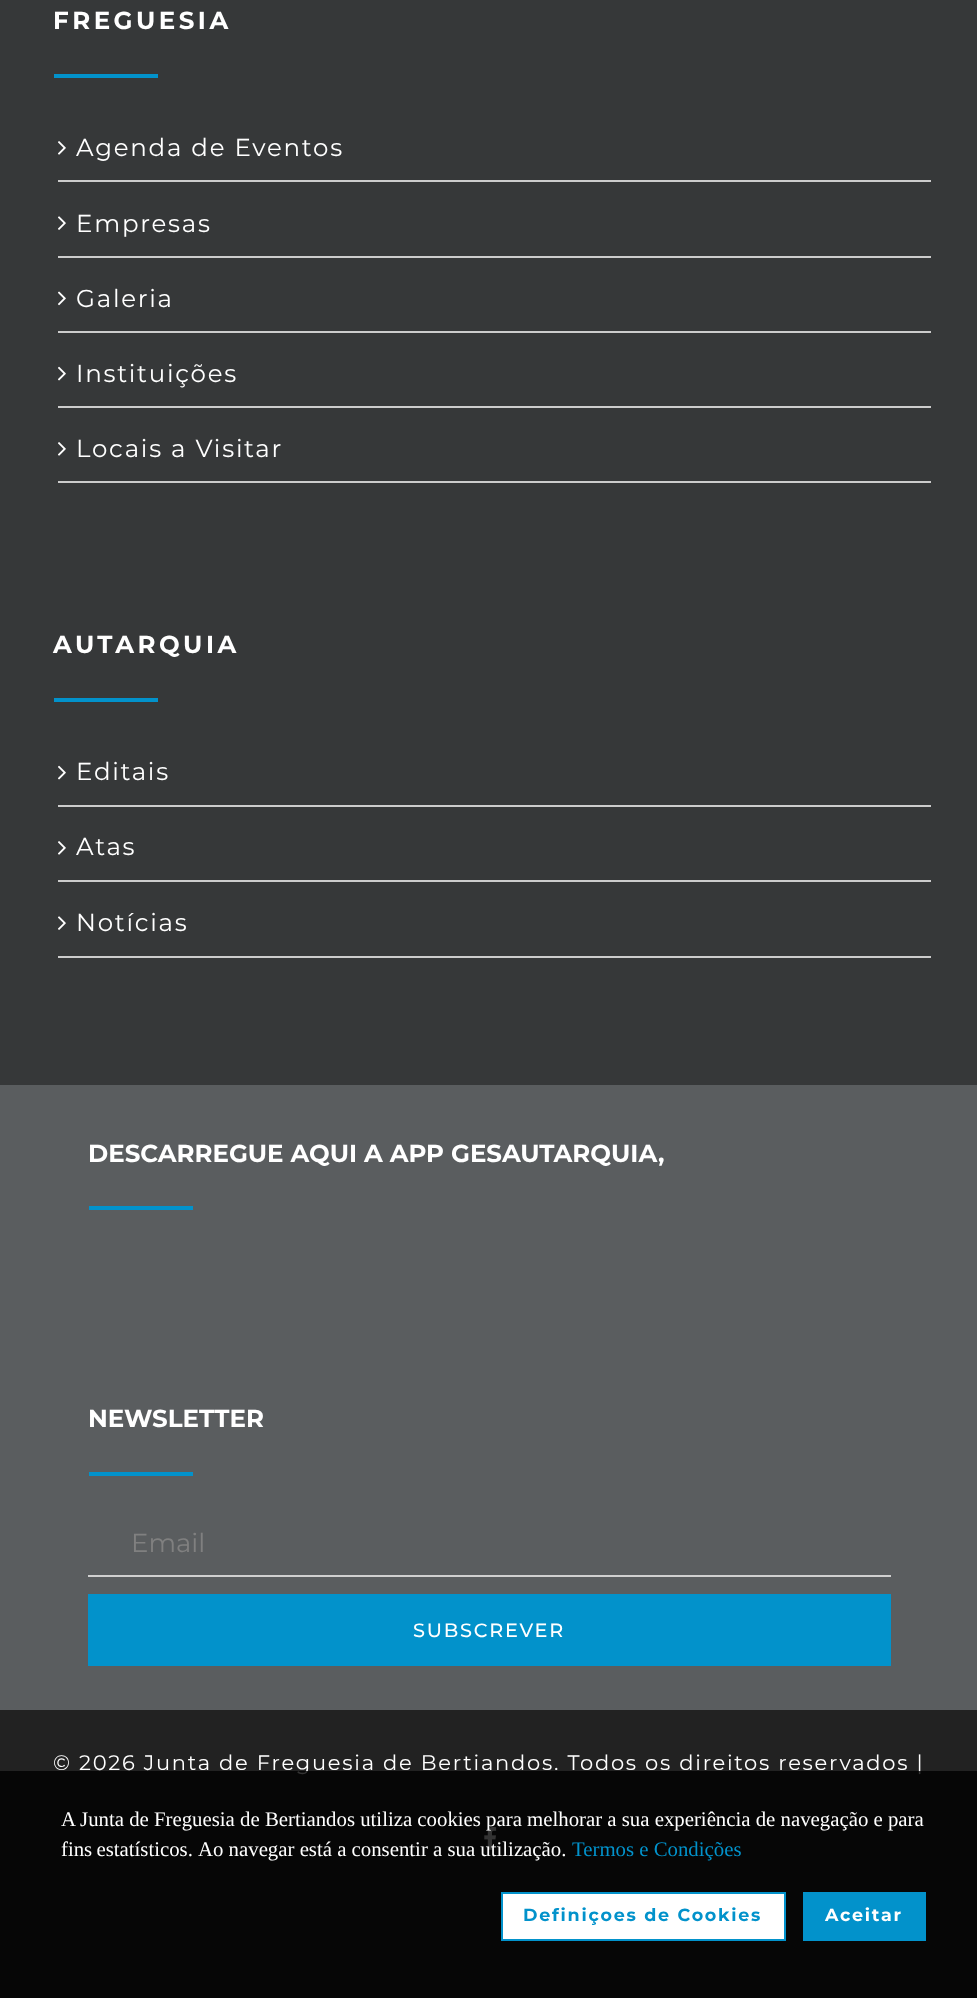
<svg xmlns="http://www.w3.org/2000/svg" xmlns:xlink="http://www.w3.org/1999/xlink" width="977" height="1998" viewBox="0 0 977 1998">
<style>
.cls-1{font:bold 24.5px Montserrat;letter-spacing:3.5px;fill:#ffffff}
.cls-2{font:24.5px Montserrat;letter-spacing:1.75px;fill:#ffffff}
.cls-3{font:bold 24.5px Montserrat;fill:#ffffff}
.cls-4{font:26px Montserrat;fill:#808080}
.cls-5{font:500 19.25px Montserrat;letter-spacing:1.75px;fill:#ffffff}
.cls-6{font:21px Montserrat;letter-spacing:1.75px;fill:#ffffff}
.cls-7{font:20.8px Liberation Serif;fill:#ffffff}
.cls-8{font:20.8px Liberation Serif;fill:#0292cb}
.cls-9{font:bold 17.5px Montserrat;letter-spacing:1.75px;fill:#0292cb}
.cls-10{font:bold 17.5px Montserrat;letter-spacing:1.75px;fill:#ffffff}
</style>
<rect width="100%" height="100%" fill="#5a5d5f"/>
<rect fill="#363839" x="0" y="0" width="977" height="1085"/>
<rect fill="#0292cb" x="54" y="74" width="104" height="4"/>
<rect fill="#cccccc" x="58" y="180" width="873" height="2"/>
<image xlink:href="image0.png" x="58" y="141" width="8" height="14"/>
<rect fill="#cccccc" x="58" y="256" width="873" height="2"/>
<image xlink:href="image1.png" x="58" y="216" width="8" height="14"/>
<rect fill="#cccccc" x="58" y="331" width="873" height="2"/>
<image xlink:href="image2.png" x="58" y="291" width="8" height="15"/>
<rect fill="#cccccc" x="58" y="406" width="873" height="2"/>
<image xlink:href="image3.png" x="58" y="366" width="8" height="15"/>
<rect fill="#cccccc" x="58" y="481" width="873" height="2"/>
<image xlink:href="image0.png" x="58" y="442" width="8" height="14"/>
<rect fill="#0292cb" x="54" y="698" width="104" height="4"/>
<rect fill="#cccccc" x="58" y="805" width="873" height="2"/>
<image xlink:href="image3.png" x="58" y="765" width="8" height="15"/>
<rect fill="#cccccc" x="58" y="880" width="873" height="2"/>
<image xlink:href="image0.png" x="58" y="841" width="8" height="14"/>
<rect fill="#cccccc" x="58" y="956" width="873" height="2"/>
<image xlink:href="image1.png" x="58" y="916" width="8" height="14"/>
<rect fill="#0292cb" x="89" y="1206" width="104" height="4"/>
<rect fill="#0292cb" x="89" y="1472" width="104" height="4"/>
<rect fill="#d0d0d0" x="88" y="1575" width="803" height="2"/>
<rect fill="#0292cb" x="88" y="1594" width="803" height="72"/>
<rect fill="#222222" x="0" y="1710" width="977" height="288"/>
<image xlink:href="image4.png" x="484" y="1827" width="13" height="23"/>
<text class="cls-1" x="53" y="29">FREGUESIA</text>
<text class="cls-2" x="76" y="156">Agenda de Eventos</text>
<text class="cls-2" x="76" y="232">Empresas</text>
<text class="cls-2" x="76" y="307">Galeria</text>
<text class="cls-2" x="76" y="382">Instituições</text>
<text class="cls-2" x="76" y="457">Locais a Visitar</text>
<text class="cls-1" x="53" y="653">AUTARQUIA</text>
<text class="cls-2" x="76" y="780">Editais</text>
<text class="cls-2" x="76" y="855">Atas</text>
<text class="cls-2" x="76" y="931">Notícias</text>
<text class="cls-3" x="88" y="1162">DESCARREGUE AQUI A APP GESAUTARQUIA,</text>
<text class="cls-3" x="88" y="1427">NEWSLETTER</text>
<text class="cls-4" x="131" y="1552">Email</text>
<text class="cls-5" x="413" y="1637">SUBSCREVER</text>
<text class="cls-6" x="53" y="1770">© 2026 Junta de Freguesia de Bertiandos. Todos os direitos reservados |</text>
<rect fill="#000000" fill-opacity="0.8" x="0" y="1771" width="977" height="227"/>
<text class="cls-7"><tspan x="61" y="1826">A Junta de Freguesia de Bertiandos utiliza cookies para melhorar a sua experiência de navegação e para</tspan><tspan x="61" y="1856" word-spacing="-1">fins estatísticos.</tspan></text>
<text class="cls-7" x="198" y="1856">Ao navegar está a consentir a sua utilização.</text>
<text class="cls-8" x="572" y="1856">Termos e Condições</text>
<rect fill="#ffffff" stroke="#0292cb" stroke-width="2" x="502" y="1893" width="283" height="47"/>
<text class="cls-9" x="523" y="1921">Definiçoes de Cookies</text>
<rect fill="#0292cb" x="803" y="1892" width="123" height="49"/>
<text class="cls-10" x="825" y="1921">Aceitar</text>
</svg>
